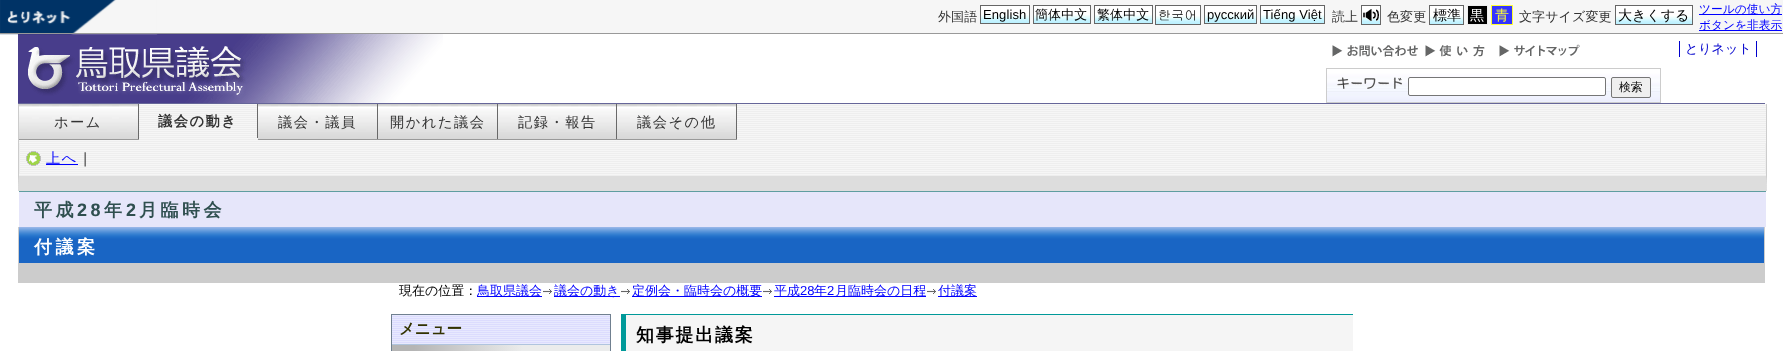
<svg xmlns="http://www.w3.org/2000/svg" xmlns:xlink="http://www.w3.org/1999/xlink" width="1783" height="351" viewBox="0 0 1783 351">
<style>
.cls-1{font:500 13px WenQuanYi Zen Hei;letter-spacing:0.1px;fill:#333333}
.cls-2{font:13px Liberation Sans;letter-spacing:0.1px;fill:#000000}
.cls-3{font:500 13px WenQuanYi Zen Hei;letter-spacing:0.1px;fill:#000000}
.cls-4{font:13px Gulim;letter-spacing:0.1px;fill:#000000}
.cls-5{font:500 14px WenQuanYi Zen Hei;fill:#000000}
.cls-6{font:500 14px WenQuanYi Zen Hei;fill:#ffffff}
.cls-7{font:500 14px WenQuanYi Zen Hei;fill:#ffff33}
.cls-8{font:500 11.75px WenQuanYi Zen Hei;fill:#0000ff}
.cls-9{font:500 13px WenQuanYi Zen Hei;fill:#0000cc}
.cls-10{font:500 11.75px WenQuanYi Zen Hei;fill:#000000}
.cls-11{font:500 14.25px WenQuanYi Zen Hei;letter-spacing:1.5px;fill:#333333}
.cls-12{font:bold 14.25px WenQuanYi Zen Hei;letter-spacing:1.5px;fill:#333333}
.cls-13{font:500 14.25px WenQuanYi Zen Hei;letter-spacing:1.5px;fill:#0000ff}
.cls-14{font:500 14.25px WenQuanYi Zen Hei;letter-spacing:1.5px;fill:#000000}
.cls-15{font:bold 18px WenQuanYi Zen Hei;letter-spacing:3.5px;fill:#2f4f4f}
.cls-16{font:bold 18px Liberation Sans;letter-spacing:3.5px;fill:#2f4f4f}
.cls-17{font:bold 18px WenQuanYi Zen Hei;letter-spacing:3.5px;fill:#ffffff}
.cls-18{font:500 13px WenQuanYi Zen Hei;fill:#000000}
.cls-19{font:500 13px WenQuanYi Zen Hei;fill:#0000ff}
.cls-20{font:13px Liberation Sans;fill:#0000ff}
.cls-21{font:bold 15.5px WenQuanYi Zen Hei;fill:#333300}
.cls-22{font:bold 18px WenQuanYi Zen Hei;letter-spacing:1.75px;fill:#000000}
</style>
<defs>
<linearGradient id="g1" gradientUnits="userSpaceOnUse" x1="392" y1="350" x2="610" y2="350"><stop offset="0" stop-color="#b5b5b5"/><stop offset="0.1" stop-color="#b5b5b5"/><stop offset="0.6" stop-color="#ebecec"/><stop offset="1" stop-color="#ebecec"/></linearGradient>
</defs>
<rect width="100%" height="100%" fill="#ffffff"/>
<rect fill="#f6f6f6" x="22" y="0" width="1761" height="33"/>
<image xlink:href="image11.png" x="18" y="34" width="425" height="69"/>
<image xlink:href="image0.png" x="0" y="0" width="158" height="35"/>
<rect fill="#999999" x="0" y="33" width="1783" height="1"/>
<rect fill="#ffffff" x="981" y="6" width="48" height="9"/>
<image xlink:href="image1.png" x="981" y="15" width="48" height="8"/>
<rect fill="none" stroke="#666666" x="980.5" y="5.5" width="49" height="18"/>
<rect fill="#ffffff" x="1034" y="6" width="56" height="9"/>
<image xlink:href="image2.png" x="1034" y="15" width="56" height="8"/>
<rect fill="none" stroke="#666666" x="1033.5" y="5.5" width="57" height="18"/>
<rect fill="#ffffff" x="1095" y="6" width="57" height="9"/>
<image xlink:href="image3.png" x="1095" y="15" width="57" height="8"/>
<rect fill="none" stroke="#666666" x="1094.5" y="5.5" width="58" height="18"/>
<rect fill="#ffffff" x="1156" y="6" width="44" height="10"/>
<image xlink:href="image4.png" x="1156" y="16" width="44" height="8"/>
<rect fill="none" stroke="#666666" x="1155.5" y="5.5" width="45" height="19"/>
<rect fill="#ffffff" x="1205" y="6" width="51" height="9"/>
<image xlink:href="image5.png" x="1205" y="15" width="51" height="8"/>
<rect fill="none" stroke="#666666" x="1204.5" y="5.5" width="52" height="18"/>
<rect fill="#ffffff" x="1261" y="6" width="63" height="9"/>
<image xlink:href="image6.png" x="1261" y="15" width="63" height="8"/>
<rect fill="none" stroke="#666666" x="1260.5" y="5.5" width="64" height="18"/>
<rect fill="#ffffff" x="1362" y="6" width="18" height="10"/>
<image xlink:href="image7.png" x="1362" y="16" width="18" height="8"/>
<rect fill="none" stroke="#666666" x="1361.5" y="5.5" width="19" height="19"/>
<image xlink:href="image8.png" x="1363" y="9" width="16" height="12"/>
<rect fill="#ffffff" x="1430" y="6" width="33" height="10"/>
<image xlink:href="image9.png" x="1430" y="16" width="33" height="8"/>
<rect fill="none" stroke="#666666" x="1429.5" y="5.5" width="34" height="19"/>
<rect fill="#000000" stroke="#eeeeee" x="1467.5" y="5.5" width="20" height="19"/>
<rect fill="#3333ff" stroke="#ffff33" x="1491.5" y="5.5" width="21" height="19"/>
<image xlink:href="image10.png" x="1616" y="6" width="76" height="18"/>
<rect fill="none" stroke="#666666" x="1615.5" y="5.5" width="77" height="19"/>
<rect fill="#0000ff" x="1699" y="14" width="83" height="1"/>
<rect fill="#0000ff" x="1699" y="30" width="83" height="1"/>
<rect fill="#666699" x="18" y="103" width="1747" height="1"/>
<rect fill="#0000cc" x="1756" y="41" width="1" height="16"/>
<rect fill="#0000cc" x="1679" y="41" width="1" height="16"/>
<image xlink:href="image12.png" x="1332" y="45" width="86" height="12"/>
<image xlink:href="image13.png" x="1425" y="45" width="60" height="12"/>
<image xlink:href="image14.png" x="1499" y="44" width="81" height="13"/>
<image xlink:href="image15.png" x="1327" y="69" width="333" height="33"/>
<rect fill="none" stroke="#cccccc" x="1326.5" y="68.5" width="334" height="34"/>
<image xlink:href="image16.png" x="1337" y="77" width="65" height="12"/>
<rect fill="#ffffff" stroke="#767676" x="1408.5" y="77.5" width="197" height="18" rx="1.5"/>
<rect fill="#efefef" stroke="#767676" x="1611.5" y="77.5" width="39" height="20" rx="1.5"/>
<image xlink:href="image17.png" x="139" y="104" width="1627" height="36"/>
<rect fill="#cccccc" x="1766" y="104" width="1" height="36"/>
<rect fill="#cccccc" x="18" y="104" width="1" height="36"/>
<image xlink:href="image18.png" x="19" y="105" width="119" height="34"/>
<rect fill="#cccccc" x="19" y="104" width="120" height="1"/>
<rect fill="#696969" x="138" y="104" width="1" height="36"/>
<rect fill="#999999" x="19" y="139" width="120" height="1"/>
<rect fill="#696969" x="257" y="104" width="1" height="34"/>
<image xlink:href="image18.png" x="258" y="105" width="119" height="34"/>
<rect fill="#cccccc" x="258" y="104" width="479" height="1"/>
<rect fill="#696969" x="377" y="104" width="1" height="36"/>
<rect fill="#999999" x="258" y="139" width="120" height="1"/>
<image xlink:href="image18.png" x="378" y="105" width="119" height="34"/>
<rect fill="#696969" x="497" y="104" width="1" height="36"/>
<rect fill="#999999" x="378" y="139" width="120" height="1"/>
<image xlink:href="image19.png" x="498" y="105" width="118" height="34"/>
<rect fill="#696969" x="616" y="104" width="1" height="36"/>
<rect fill="#999999" x="498" y="139" width="119" height="1"/>
<image xlink:href="image18.png" x="617" y="105" width="119" height="34"/>
<rect fill="#696969" x="736" y="104" width="1" height="36"/>
<rect fill="#999999" x="617" y="139" width="120" height="1"/>
<image xlink:href="image20.png" x="18" y="140" width="1749" height="51"/>
<path fill="#cccccc" d="M1767 140V191L1766 176V140Z"/>
<path fill="#dddddd" d="M1767 191H18L19 176H1766Z"/>
<path fill="#cccccc" d="M18 191V140H19V176Z"/>
<image xlink:href="image21.png" x="20" y="144" width="1745" height="29"/>
<rect fill="none" stroke="#eeeeee" x="19.5" y="143.5" width="1746" height="30"/>
<image xlink:href="image22.png" x="26" y="151" width="15" height="15"/>
<rect fill="#0000ff" x="46" y="164" width="32" height="1"/>
<rect fill="#e6e6fa" x="19" y="192" width="1747" height="35"/>
<rect fill="#5f9ea0" x="19" y="191" width="1747" height="1"/>
<image xlink:href="image23.png" x="19" y="227" width="1745" height="36"/>
<rect fill="#cccccc" x="1764" y="227" width="1" height="36"/>
<rect fill="#cccccc" x="19" y="263" width="1746" height="20"/>
<rect fill="#cccccc" x="18" y="227" width="1" height="56"/>
<rect fill="#0000ff" x="477" y="296" width="65" height="1"/>
<image xlink:href="image24.png" x="543" y="289" width="9" height="5"/>
<rect fill="#0000ff" x="554" y="296" width="66" height="1"/>
<image xlink:href="image24.png" x="621" y="289" width="9" height="5"/>
<rect fill="#0000ff" x="632" y="296" width="130" height="1"/>
<image xlink:href="image24.png" x="763" y="289" width="9" height="5"/>
<rect fill="#0000ff" x="774" y="296" width="152" height="1"/>
<image xlink:href="image24.png" x="927" y="289" width="9" height="5"/>
<rect fill="#0000ff" x="938" y="296" width="39" height="1"/>
<rect fill="none" stroke="#708090" x="391.5" y="314.5" width="219" height="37"/>
<image xlink:href="image25.png" x="392" y="315" width="218" height="29"/>
<rect fill="#b0c4de" x="392" y="344" width="218" height="1"/>
<rect fill="url(#g1)" x="392" y="345" width="218" height="6"/>
<rect fill="#f5f5f5" x="626" y="315" width="727" height="36"/>
<rect fill="#009999" x="621" y="314" width="732" height="1"/>
<rect fill="#009999" x="621" y="314" width="5" height="37"/>
<text class="cls-1" x="938" y="21">外国語</text>
<text class="cls-2" x="983" y="19">English</text>
<text class="cls-3" x="1035" y="19">簡体中文</text>
<text class="cls-3" x="1097" y="19">繁体中文</text>
<text class="cls-4" x="1158" y="20">한국어</text>
<text class="cls-2" x="1207" y="19">русский</text>
<text class="cls-2" x="1263" y="19">Tiếng Việt</text>
<text class="cls-1" x="1332" y="21">読上</text>
<text class="cls-1" x="1387" y="21">色変更</text>
<text class="cls-5" x="1433" y="20">標準</text>
<text class="cls-6" x="1470" y="20">黒</text>
<text class="cls-7" x="1495" y="20">青</text>
<text class="cls-1" x="1519" y="21">文字サイズ変更</text>
<text class="cls-5" x="1618" y="20">大きくする</text>
<text class="cls-8"><tspan x="1699" y="13">ツールの使い方</tspan><tspan x="1699" y="29">ボタンを非表示</tspan></text>
<text class="cls-9" x="1685" y="53">とりネット</text>
<text class="cls-10" x="1619" y="91">検索</text>
<text class="cls-11" x="54" y="127">ホーム</text>
<text class="cls-12" x="158" y="126">議会の動き</text>
<text class="cls-11" x="278" y="127">議会・議員</text>
<text class="cls-11" x="390" y="127">開かれた議会</text>
<text class="cls-11" x="518" y="127">記録・報告</text>
<text class="cls-11" x="637" y="127">議会その他</text>
<text class="cls-13" x="46" y="163">上へ</text>
<text class="cls-14" x="78" y="163">｜</text>
<text class="cls-15" x="34" y="216">平成</text>
<text class="cls-16" x="77" y="216">28</text>
<text class="cls-15" x="104" y="216">年</text>
<text class="cls-16" x="126" y="216">2</text>
<text class="cls-15" x="139" y="216">月臨時会</text>
<text class="cls-17" x="34" y="253">付議案</text>
<text class="cls-18" x="399" y="295">現在の位置：</text>
<text class="cls-19" x="477" y="295">鳥取県議会</text>
<text class="cls-19" x="554" y="295">議会の動き</text>
<text class="cls-19" x="632" y="295">定例会・臨時会の概要</text>
<text class="cls-19" x="774" y="295">平成</text>
<text class="cls-20" x="800" y="295">28</text>
<text class="cls-19" x="814" y="295">年</text>
<text class="cls-20" x="827" y="295">2</text>
<text class="cls-19" x="835" y="295">月臨時会の日程</text>
<text class="cls-19" x="938" y="295">付議案</text>
<text class="cls-21" x="399" y="334">メニュー</text>
<text class="cls-22" x="636" y="341">知事提出議案</text>
</svg>
